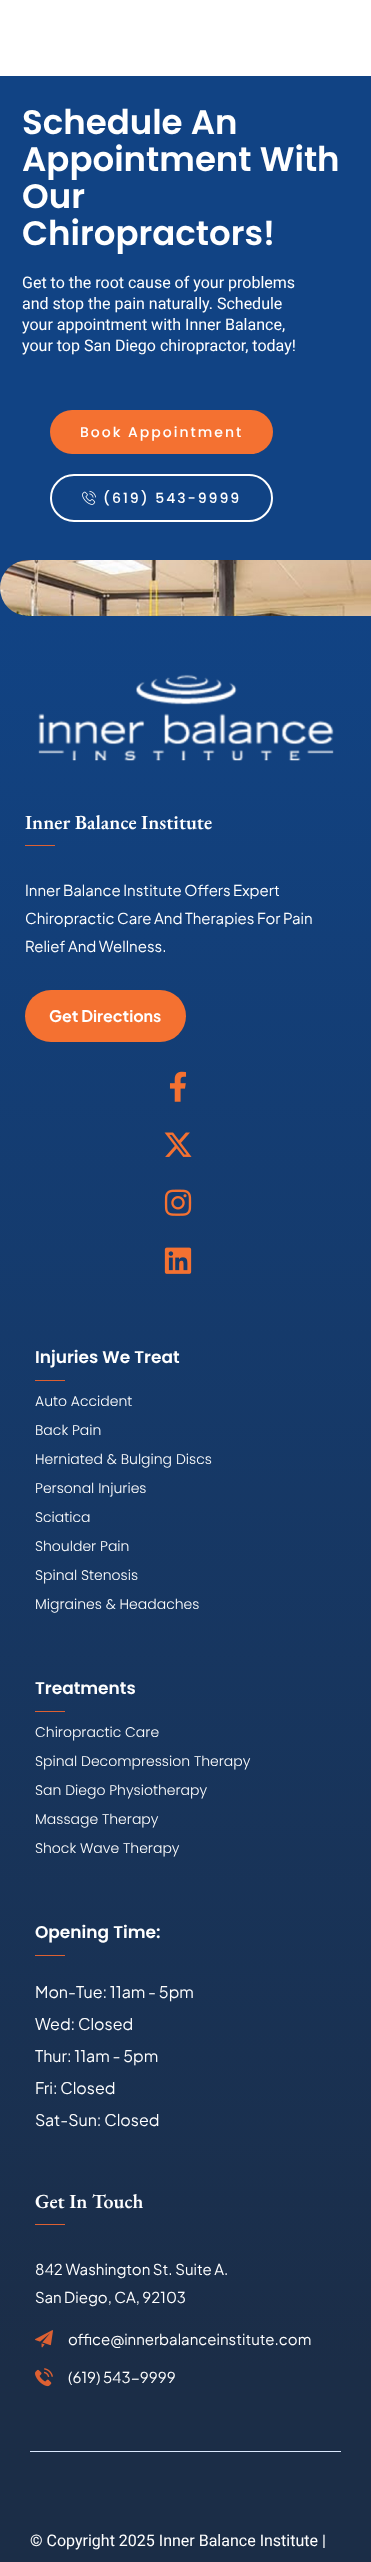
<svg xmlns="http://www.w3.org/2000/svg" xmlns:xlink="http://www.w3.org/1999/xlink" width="371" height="2562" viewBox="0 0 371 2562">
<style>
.cls-1{font:600 34px Poppins;fill:#ffffff}
.cls-2{font:16px Roboto;fill:#ffffff}
.cls-3{font:500 14px Poppins;letter-spacing:2px;fill:#ffffff}
.cls-4{font:600 20px EB Garamond;fill:#ffffff}
.cls-5{font:15px Plus Jakarta Sans;fill:#ffffff}
.cls-6{font:bold 16px Plus Jakarta Sans;fill:#ffffff}
.cls-7{font:600 17px Poppins;fill:#ffffff}
.cls-8{font:300 14px Poppins;fill:#ffffff}
.cls-9{font:16px Plus Jakarta Sans;fill:#ffffff}
</style>
<defs>
<linearGradient id="g1" gradientUnits="userSpaceOnUse" x1="185" y1="616" x2="186" y2="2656"><stop offset="0" stop-color="#114384"/><stop offset="0.86" stop-color="#1b2d47"/></linearGradient>
</defs>
<rect width="100%" height="100%" fill="#ffffff"/>
<rect fill="#114384" x="0" y="76" width="371" height="540"/>
<rect fill="#f47131" x="50" y="410" width="223" height="44" rx="22"/>
<rect fill="none" stroke="#ffffff" stroke-width="2" x="51" y="475" width="221" height="46" rx="23"/>
<image xlink:href="image0.png" x="82" y="490" width="14" height="15"/>
<image xlink:href="image1.png" x="0" y="560" width="371" height="56"/>
<rect fill="url(#g1)" x="0" y="616" width="371" height="1946"/>
<image xlink:href="image2.png" x="38" y="674" width="296" height="87"/>
<rect fill="#dd6032" x="25" y="845" width="30" height="1"/>
<rect fill="#f47131" x="25" y="990" width="161" height="52" rx="26"/>
<image xlink:href="image3.png" x="169" y="1071" width="18" height="31"/>
<image xlink:href="image4.png" x="164" y="1132" width="28" height="25"/>
<image xlink:href="image5.png" x="164" y="1189" width="28" height="27"/>
<image xlink:href="image6.png" x="164" y="1247" width="28" height="27"/>
<rect fill="#dd6032" x="35" y="1380" width="30" height="1"/>
<rect fill="#dd6032" x="35" y="1711" width="30" height="1"/>
<rect fill="#dd6032" x="35" y="1955" width="30" height="1"/>
<rect fill="#dd6032" x="35" y="2224" width="30" height="1"/>
<image xlink:href="image7.png" x="35" y="2330" width="18" height="18"/>
<image xlink:href="image8.png" x="35" y="2368" width="18" height="19"/>
<rect fill="#dae9fe" x="30" y="2451" width="311" height="1"/>
<text class="cls-1"><tspan x="22" y="134">Schedule An</tspan><tspan x="22" y="171">Appointment With</tspan><tspan x="22" y="208">Our</tspan><tspan x="22" y="245">Chiropractors!</tspan></text>
<text class="cls-2"><tspan x="22" y="288">Get to the root cause of your problems</tspan><tspan x="22" y="309">and stop the pain naturally. Schedule</tspan><tspan x="22" y="330">your appointment with Inner Balance,</tspan><tspan x="22" y="351">your top San Diego chiropractor, today!</tspan></text>
<text class="cls-3" x="80" y="437">Book Appointment</text>
<text class="cls-3" x="103" y="503">(619) 543-9999</text>
<text class="cls-4" x="25" y="829">Inner Balance Institute</text>
<text class="cls-5"><tspan x="25" y="896">Inner Balance Institute Offers Expert</tspan><tspan x="25" y="924">Chiropractic Care And Therapies For Pain</tspan><tspan x="25" y="952">Relief And Wellness.</tspan></text>
<text class="cls-6" x="49" y="1022">Get Directions</text>
<text class="cls-7" x="35" y="1363">Injuries We Treat</text>
<text class="cls-8" x="35" y="1406">Auto Accident</text>
<text class="cls-8" x="35" y="1435">Back Pain</text>
<text class="cls-8" x="35" y="1464">Herniated &amp; Bulging Discs</text>
<text class="cls-8" x="35" y="1493">Personal Injuries</text>
<text class="cls-8" x="35" y="1522">Sciatica</text>
<text class="cls-8" x="35" y="1551">Shoulder Pain</text>
<text class="cls-8" x="35" y="1580">Spinal Stenosis</text>
<text class="cls-8" x="35" y="1609">Migraines &amp; Headaches</text>
<text class="cls-7" x="35" y="1694">Treatments</text>
<text class="cls-8" x="35" y="1737">Chiropractic Care</text>
<text class="cls-8" x="35" y="1766">Spinal Decompression Therapy</text>
<text class="cls-8" x="35" y="1795">San Diego Physiotherapy</text>
<text class="cls-8" x="35" y="1824">Massage Therapy</text>
<text class="cls-8" x="35" y="1853">Shock Wave Therapy</text>
<text class="cls-7" x="35" y="1938">Opening Time:</text>
<text class="cls-9" x="35" y="1998">Mon-Tue: 11am - 5pm</text>
<text class="cls-9" x="35" y="2030">Wed: Closed</text>
<text class="cls-9" x="35" y="2062">Thur: 11am - 5pm</text>
<text class="cls-9" x="35" y="2094">Fri: Closed</text>
<text class="cls-9" x="35" y="2126">Sat-Sun: Closed</text>
<text class="cls-4" x="35" y="2208">Get In Touch</text>
<text class="cls-5"><tspan x="35" y="2275">842 Washington St. Suite A.</tspan><tspan x="35" y="2303">San Diego, CA, 92103</tspan></text>
<text class="cls-5" x="68" y="2345">office@innerbalanceinstitute.com</text>
<text class="cls-5" x="68" y="2383">(619) 543-9999</text>
<text class="cls-2" x="30" y="2546">© Copyright 2025 Inner Balance Institute |</text>
</svg>
